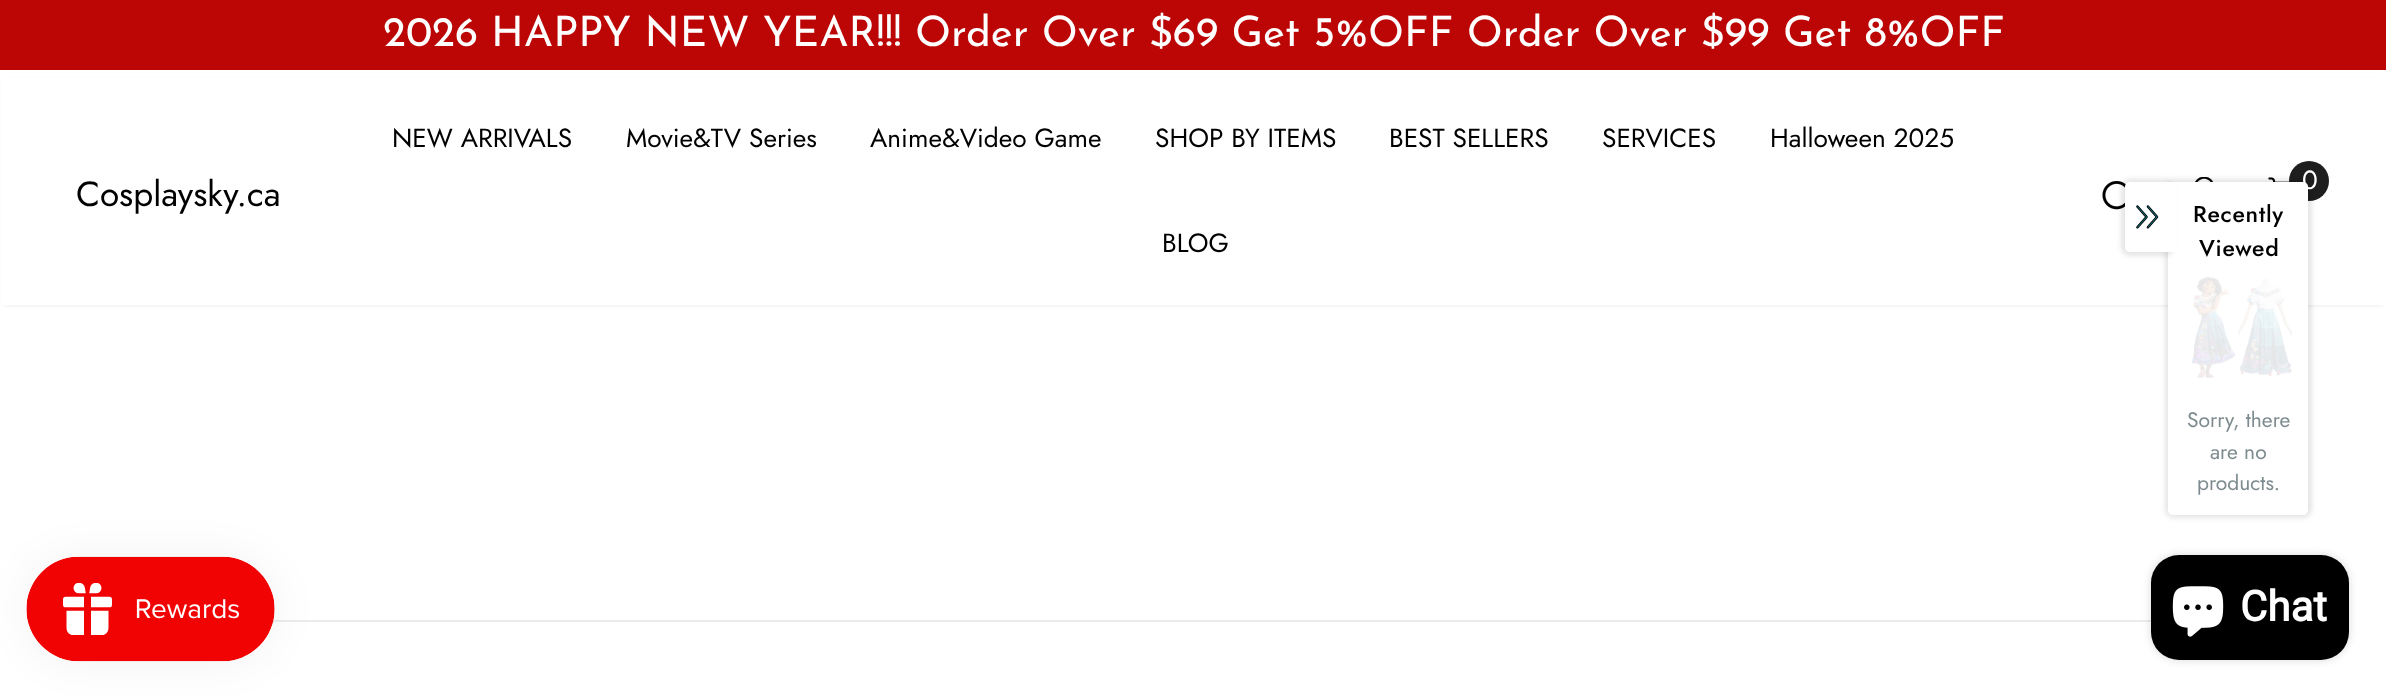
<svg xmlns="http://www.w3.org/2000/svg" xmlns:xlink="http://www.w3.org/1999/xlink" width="2386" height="696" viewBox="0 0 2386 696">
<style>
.cls-1{font:100 42px Josefin Sans;fill:#ffffff}
.cls-2{font:35px Jost;fill:#000000}
.cls-3{font:26.25px Jost;fill:#000000}
.cls-4{font:26.25px Jost;fill:#ffffff}
.cls-5{font:500 23px Jost;letter-spacing:0.75px;fill:#000000}
.cls-6{font:21px Jost;fill:#7d8b8e}
.cls-7{font:bold 42px Roboto;fill:#ffffff}
</style>
<rect width="100%" height="100%" fill="#ffffff"/>
<rect fill="#bc0505" x="0" y="0" width="2386" height="70"/>
<rect fill="#000000" fill-opacity="0.1" filter="blur(2.5px)" x="5" y="81" width="2377" height="224"/>
<rect fill="#ffffff" x="2" y="78" width="2383" height="227"/>
<image xlink:href="image0.png" x="2195" y="177" width="18" height="5"/>
<image xlink:href="image1.png" x="2268" y="177" width="22" height="5"/>
<circle fill="#1e1e1e" cx="2309" cy="181" r="20"/>
<image xlink:href="image2.png" x="2102" y="180" width="24" height="30"/>
<rect fill="#000000" fill-opacity="0.1" filter="blur(2.5px)" x="2165" y="179" width="147" height="339" rx="9"/>
<path fill="#ffffff" d="M2168 182H2303C2306 182 2308 184 2308 187V510C2308 513 2306 515 2303 515H2173C2170 515 2168 513 2168 510Z"/>
<rect fill="#000000" fill-opacity="0.1" filter="blur(2.5px)" x="2121" y="179" width="53" height="77" rx="9"/>
<path fill="#ffffff" d="M2130 182H2170V252H2130C2127 252 2125 250 2125 247V187C2125 184 2127 182 2130 182Z"/>
<image xlink:href="image3.png" x="2136" y="205" width="23" height="24"/>
<rect fill="#ffffff" x="2170" y="182" width="7" height="70"/>
<image xlink:href="image4.png" x="2192" y="276" width="100" height="102"/>
<rect fill="#ebebeb" x="273" y="620" width="1878" height="2"/>
<rect fill="#000000" fill-opacity="0.05" filter="blur(22px)" x="26" y="557" width="249" height="105" rx="52.5"/>
<image xlink:href="image5.png" x="26" y="556" width="249" height="106"/>
<rect fill="#000000" fill-opacity="0.15" filter="blur(4.5px)" x="2151" y="555" width="198" height="105" rx="28"/>
<rect fill="#000000" x="2151" y="555" width="198" height="105" rx="28"/>
<image xlink:href="image6.png" x="2172" y="586" width="52" height="51"/>
<text class="cls-1" x="383" y="46">2026 HAPPY NEW YEAR!!! Order Over $69 Get 5%OFF Order Over $99 Get 8%OFF</text>
<text class="cls-2" x="76" y="206">Cosplaysky.ca</text>
<text class="cls-3" x="392" y="147">NEW ARRIVALS</text>
<text class="cls-3" x="626" y="147">Movie&amp;TV Series</text>
<text class="cls-3" x="870" y="147">Anime&amp;Video Game</text>
<text class="cls-3" x="1155" y="147">SHOP BY ITEMS</text>
<text class="cls-3" x="1389" y="147">BEST SELLERS</text>
<text class="cls-3" x="1602" y="147">SERVICES</text>
<text class="cls-3" x="1770" y="147">Halloween 2025</text>
<text class="cls-3" x="1162" y="252">BLOG</text>
<text class="cls-4" x="2302" y="189">0</text>
<text class="cls-5" x="2193" y="222">Recently</text>
<text class="cls-5" x="2199" y="256">Viewed</text>
<text class="cls-6" x="2187" y="427">Sorry, there</text>
<text class="cls-6" x="2210" y="459">are no</text>
<text class="cls-6" x="2197" y="490">products.</text>
<text class="cls-7" x="2240" y="621">Chat</text>
</svg>
